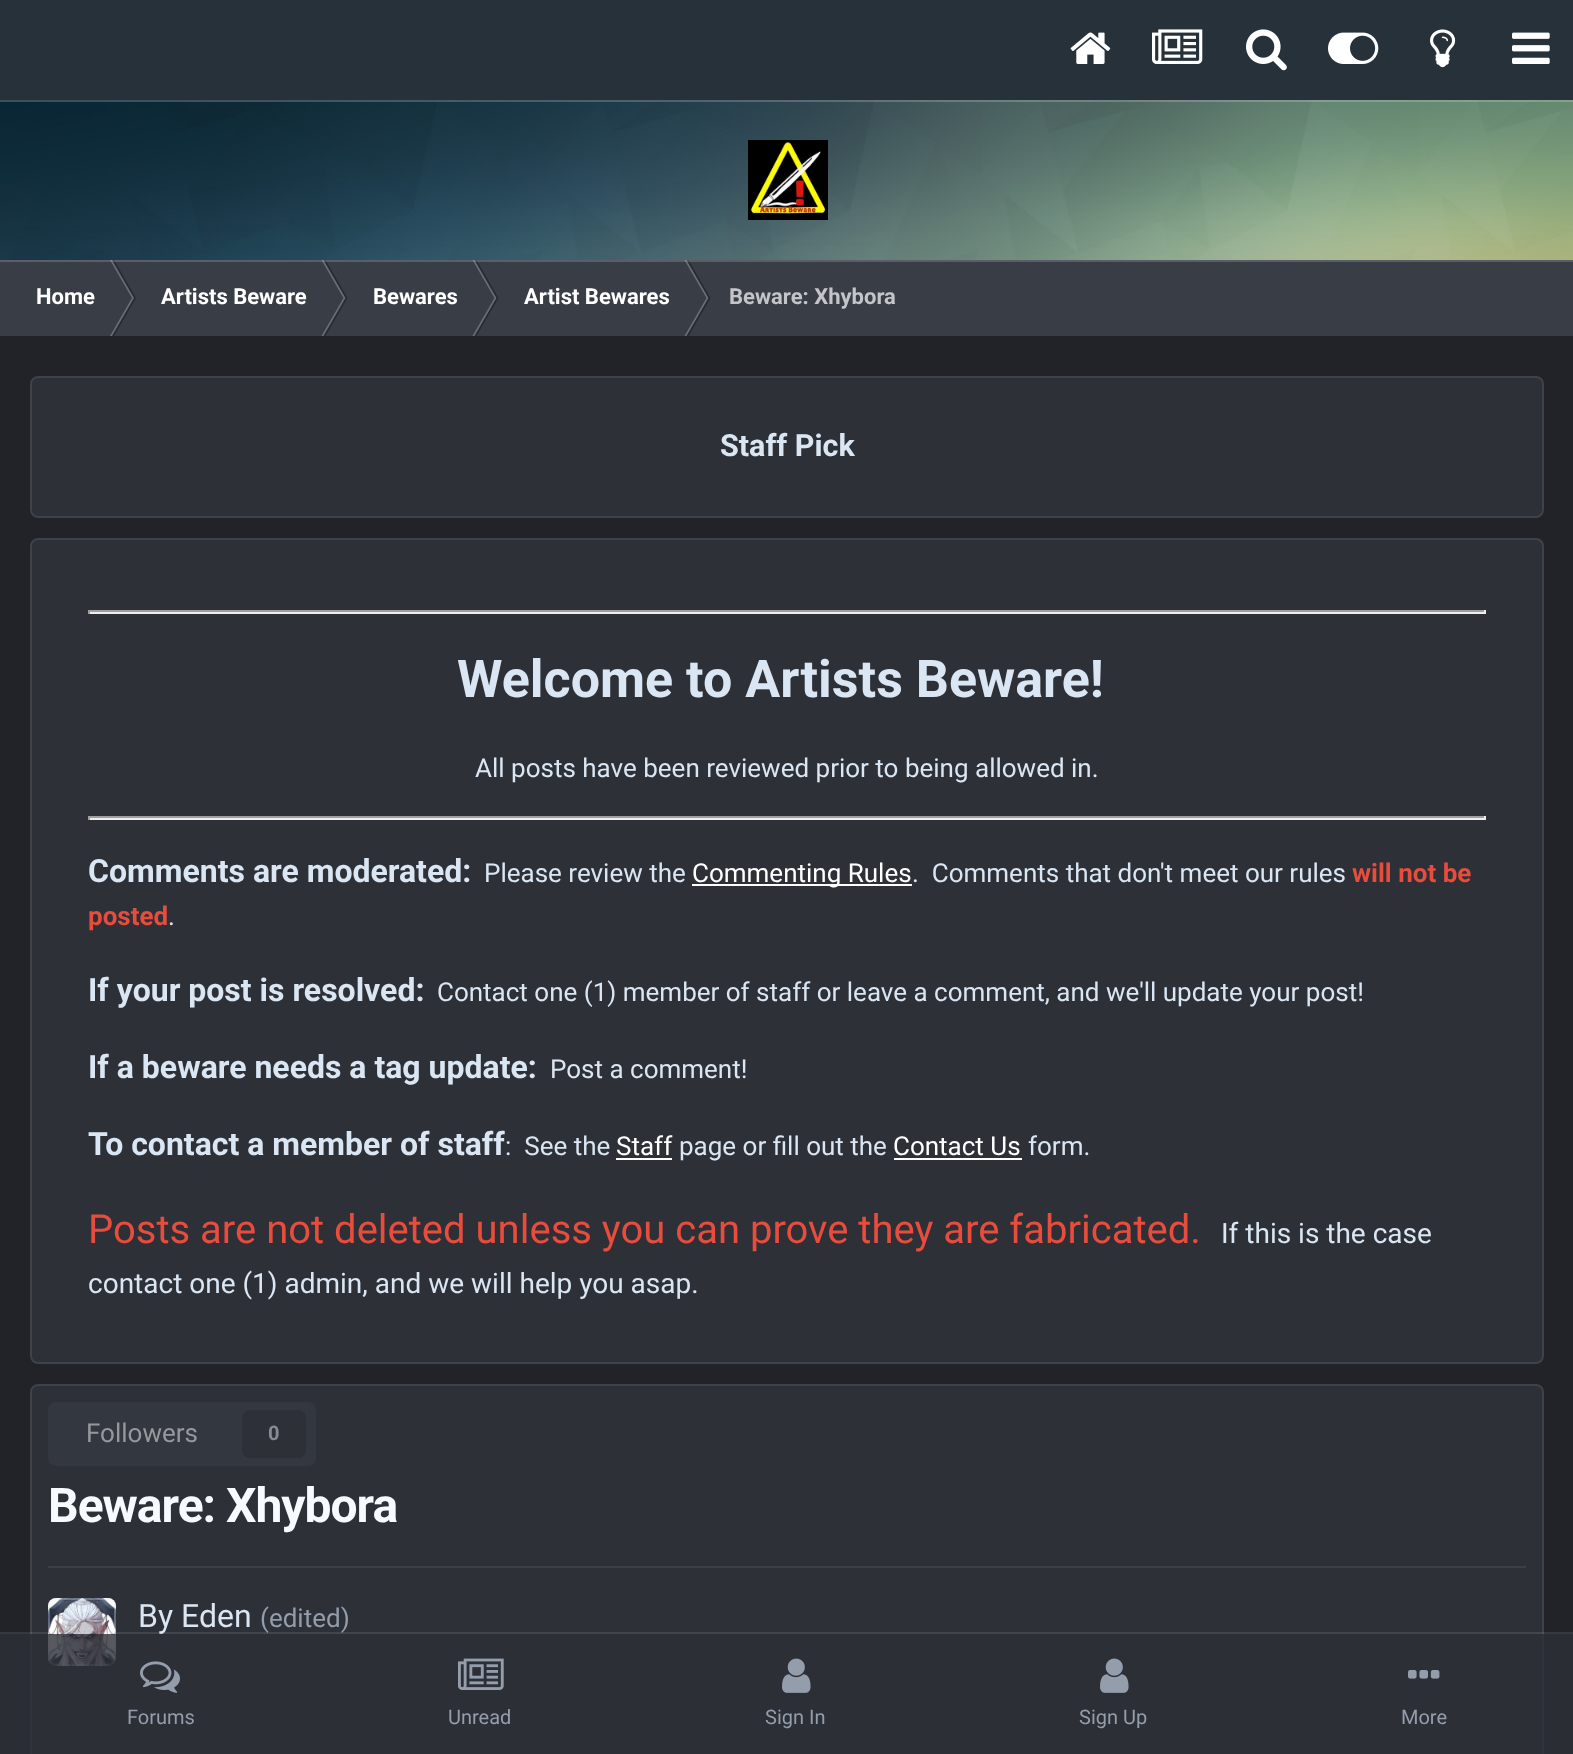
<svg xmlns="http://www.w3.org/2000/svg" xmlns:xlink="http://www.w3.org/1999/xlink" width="1573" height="1754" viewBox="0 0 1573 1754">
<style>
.cls-1{font:bold 22px Roboto;fill:#ffffff}
.cls-2{font:bold 22px Roboto;fill:#c4c5c8}
.cls-3{font:bold 30.5px Roboto;fill:#dae6f3}
.cls-4{font:bold 52px Roboto;fill:#dae6f3}
.cls-5{font:26px Roboto;fill:#dae6f3}
.cls-6{font:bold 32px Roboto;fill:#dae6f3}
.cls-7{font:26px Roboto;fill:#ffffff}
.cls-8{font:bold 26px Roboto;fill:#e74c3c}
.cls-9{font:40px Roboto;fill:#e74c3c}
.cls-10{font:28px Roboto;fill:#dae6f3}
.cls-11{font:26px Roboto;fill:#96989b}
.cls-12{font:bold 20px Roboto;fill:#848b95}
.cls-13{font:bold 48px Roboto;letter-spacing:-1px;fill:#f7fafe}
.cls-14{font:32px Roboto;fill:#dae6f3}
.cls-15{font:26px Roboto;fill:#939dac}
.cls-16{font:20px Roboto;fill:#939dac}
</style>
<rect width="100%" height="100%" fill="#ffffff"/>
<image xlink:href="image6.png" x="0" y="100" width="1573" height="160"/>
<rect fill="#ffffff" fill-opacity="0.2" x="0" y="100" width="1573" height="2"/>
<rect fill="#26313a" x="0" y="0" width="1573" height="100"/>
<image xlink:href="image0.png" x="1070" y="32" width="41" height="32"/>
<image xlink:href="image1.png" x="1152" y="29" width="51" height="35"/>
<image xlink:href="image2.png" x="1246" y="29" width="41" height="42"/>
<image xlink:href="image3.png" x="1328" y="32" width="51" height="32"/>
<image xlink:href="image4.png" x="1430" y="29" width="26" height="39"/>
<image xlink:href="image5.png" x="1512" y="32" width="38" height="32"/>
<image xlink:href="image7.png" x="748" y="140" width="80" height="80"/>
<rect fill="#000000" fill-opacity="0.06" filter="blur(20px)" x="0" y="260" width="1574" height="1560" rx="6"/>
<rect fill="#212328" x="0" y="336" width="1573" height="1418"/>
<rect fill="#393d46" x="0" y="260" width="1573" height="76"/>
<path fill="#6b6e74" d="M110 260H112L134 298H132Z"/>
<path fill="#000000" fill-opacity="0.3" d="M112 260H114L136 298H134Z"/>
<path fill="#6b6e74" d="M321.5 260H323.5L345.5 298H343.5Z"/>
<path fill="#000000" fill-opacity="0.3" d="M323.5 260H325.5L347.5 298H345.5Z"/>
<path fill="#6b6e74" d="M472.5 260H474.5L496.5 298H494.5Z"/>
<path fill="#000000" fill-opacity="0.3" d="M474.5 260H476.5L498.5 298H496.5Z"/>
<path fill="#6b6e74" d="M684.5 260H686.5L708.5 298H706.5Z"/>
<path fill="#000000" fill-opacity="0.3" d="M686.5 260H688.5L710.5 298H708.5Z"/>
<rect fill="#dae6f3" fill-opacity="0.2" x="0" y="260" width="1573" height="2"/>
<path fill="#6b6e74" d="M110 336H112L134 298H132Z"/>
<path fill="#000000" fill-opacity="0.3" d="M112 336H114L136 298H134Z"/>
<path fill="#6b6e74" d="M321.5 336H323.5L345.5 298H343.5Z"/>
<path fill="#000000" fill-opacity="0.3" d="M323.5 336H325.5L347.5 298H345.5Z"/>
<path fill="#6b6e74" d="M472.5 336H474.5L496.5 298H494.5Z"/>
<path fill="#000000" fill-opacity="0.3" d="M474.5 336H476.5L498.5 298H496.5Z"/>
<path fill="#6b6e74" d="M684.5 336H686.5L708.5 298H706.5Z"/>
<path fill="#000000" fill-opacity="0.3" d="M686.5 336H688.5L710.5 298H708.5Z"/>
<rect fill="#2d3037" x="30" y="376" width="1514" height="142" rx="8"/>
<rect fill="none" stroke="#dae6f3" stroke-opacity="0.1" stroke-width="2" x="31" y="377" width="1512" height="140" rx="7"/>
<rect fill="#2d3037" x="30" y="538" width="1514" height="826" rx="8"/>
<rect fill="none" stroke="#dae6f3" stroke-opacity="0.1" stroke-width="2" x="31" y="539" width="1512" height="824" rx="7"/>
<rect fill="#9f9f9f" x="88" y="610" width="1398" height="2"/>
<rect fill="#eeeeee" x="1484" y="610" width="2" height="4"/>
<rect fill="#eeeeee" x="88" y="612" width="1398" height="2"/>
<rect fill="#9f9f9f" x="88" y="610" width="2" height="4"/>
<rect fill="#9f9f9f" x="88" y="816" width="1398" height="2"/>
<rect fill="#eeeeee" x="1484" y="816" width="2" height="4"/>
<rect fill="#eeeeee" x="88" y="818" width="1398" height="2"/>
<rect fill="#9f9f9f" x="88" y="816" width="2" height="4"/>
<rect fill="#ffffff" x="692" y="884" width="220" height="2"/>
<rect fill="#ffffff" x="616" y="1158" width="56" height="2"/>
<rect fill="#ffffff" x="894" y="1158" width="128" height="2"/>
<rect fill="#2d3037" x="30" y="1384" width="1514" height="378" rx="8"/>
<rect fill="none" stroke="#dae6f3" stroke-opacity="0.1" stroke-width="2" x="31" y="1385" width="1512" height="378" rx="7"/>
<rect fill="#33373f" x="48" y="1402" width="268" height="64" rx="8"/>
<rect fill="#2d3037" x="242" y="1410" width="64" height="48" rx="8"/>
<rect fill="#3b3f46" x="48" y="1566" width="1478" height="2"/>
<image xlink:href="image8.png" x="48" y="1598" width="68" height="68"/>
<rect fill="none" stroke="#dae6f3" stroke-opacity="0.3" stroke-width="2" x="49" y="1599" width="66" height="66" rx="7"/>
<rect fill="#ffffff" fill-opacity="0.1" x="0" y="1632" width="1573" height="2"/>
<rect fill="#2d3037" fill-opacity="0.8" x="0" y="1634" width="1573" height="120"/>
<image xlink:href="image9.png" x="140" y="1661" width="40" height="32"/>
<image xlink:href="image10.png" x="458" y="1658" width="46" height="32"/>
<image xlink:href="image11.png" x="782" y="1658" width="29" height="35"/>
<image xlink:href="image11.png" x="1100" y="1658" width="29" height="35"/>
<image xlink:href="image12.png" x="1408" y="1670" width="32" height="9"/>
<text class="cls-1" x="36" y="304">Home</text>
<text class="cls-1" x="161" y="304">Artists Beware</text>
<text class="cls-1" x="373" y="304">Bewares</text>
<text class="cls-1" x="524" y="304">Artist Bewares</text>
<text class="cls-2" x="729" y="304">Beware: Xhybora</text>
<text class="cls-3" x="720" y="456">Staff Pick</text>
<text class="cls-4" x="457" y="697">Welcome to Artists Beware!</text>
<text class="cls-5" x="475" y="777">All posts have been reviewed prior to being allowed in.</text>
<text class="cls-6" x="88" y="882">Comments are moderated:</text>
<text class="cls-5" x="484" y="882">Please review the</text>
<text class="cls-7" x="692" y="882">Commenting Rules</text>
<text class="cls-5" xml:space="preserve" x="912" y="882">.  Comments that don't meet our rules</text>
<text class="cls-8" x="1352" y="882">will not be</text>
<text class="cls-8" x="88" y="925">posted</text>
<text class="cls-5" x="168" y="925">.</text>
<text class="cls-6" x="88" y="1001">If your post is resolved:</text>
<text class="cls-5" x="437" y="1001">Contact one (1) member of staff or leave a comment, and we'll update your post!</text>
<text class="cls-6" x="88" y="1078">If a beware needs a tag update:</text>
<text class="cls-5" x="550" y="1078">Post a comment!</text>
<text class="cls-6" x="88" y="1155">To contact a member of staff</text>
<text class="cls-5" xml:space="preserve" x="505" y="1155">:  See the</text>
<text class="cls-7" x="616" y="1155">Staff</text>
<text class="cls-5" x="679" y="1155">page or fill out the</text>
<text class="cls-7" x="893" y="1155">Contact Us</text>
<text class="cls-5" x="1028" y="1155">form.</text>
<text class="cls-9" x="88" y="1243">Posts are not deleted unless you can prove they are fabricated.</text>
<text class="cls-10" x="1221" y="1243">If this is the case</text>
<text class="cls-10" x="88" y="1293">contact one (1) admin, and we will help you asap.</text>
<text class="cls-11" x="86" y="1442">Followers</text>
<text class="cls-12" x="268" y="1440">0</text>
<text class="cls-13" x="48" y="1522">Beware: Xhybora</text>
<text class="cls-14" x="138" y="1627">By Eden</text>
<text class="cls-15" x="260" y="1627">(edited)</text>
<text class="cls-16" x="127" y="1724">Forums</text>
<text class="cls-16" x="448" y="1724">Unread</text>
<text class="cls-16" x="765" y="1724">Sign In</text>
<text class="cls-16" x="1079" y="1724">Sign Up</text>
<text class="cls-16" x="1401" y="1724">More</text>
</svg>
